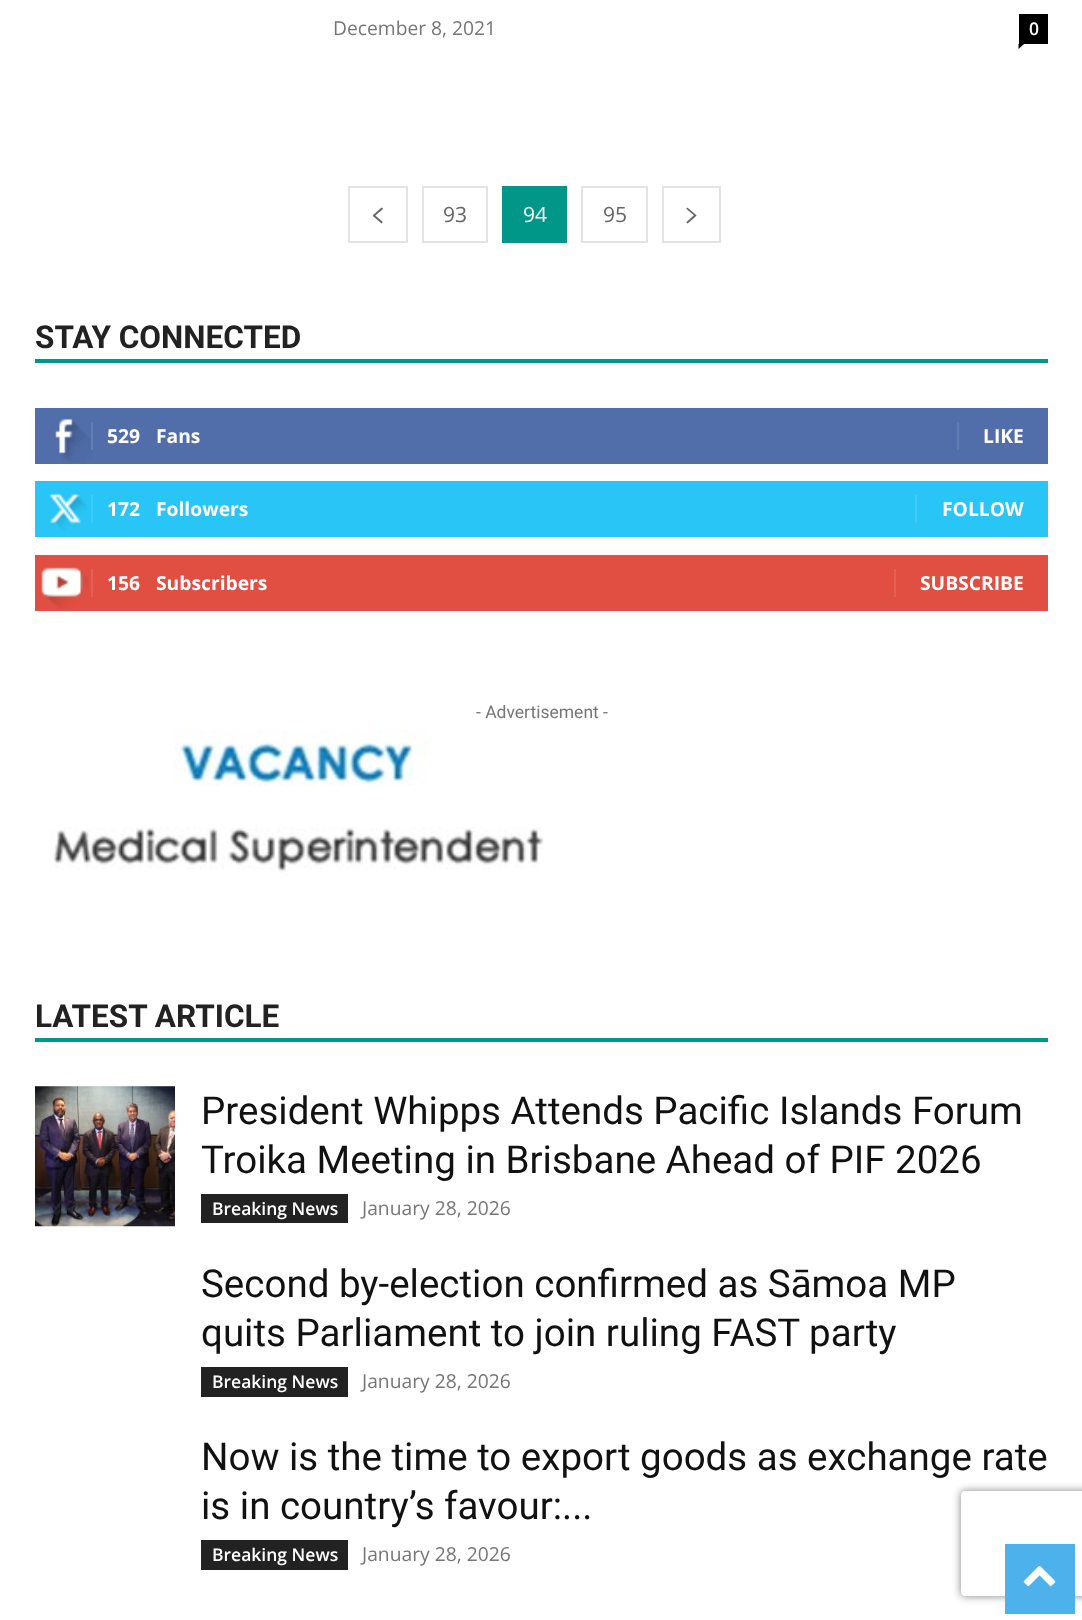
<svg xmlns="http://www.w3.org/2000/svg" xmlns:xlink="http://www.w3.org/1999/xlink" width="1082" height="1620" viewBox="0 0 1082 1620">
<style>
.cls-1{font:19.25px Open Sans;fill:#767676}
.cls-2{font:600 17.5px Open Sans;fill:#ffffff}
.cls-3{font:21px Open Sans;fill:#666666}
.cls-4{font:21px Open Sans;fill:#ffffff}
.cls-5{font:bold 31.5px Roboto;fill:#222222}
.cls-6{font:bold 19.25px Open Sans;fill:#ffffff}
.cls-7{font:17.5px Roboto;fill:#767676}
.cls-8{font:38.5px Roboto;fill:#111111}
</style>
<defs>
<clipPath id="clip1"><path d="M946 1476H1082V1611H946ZM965 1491H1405C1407 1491 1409 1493 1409 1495V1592C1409 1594 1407 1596 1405 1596H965C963 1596 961 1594 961 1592V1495C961 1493 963 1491 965 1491Z" clip-rule="evenodd"/></clipPath>
</defs>
<rect width="100%" height="100%" fill="#ffffff"/>
<rect fill="#000000" x="1019" y="14" width="29" height="30"/>
<path fill="#000000" d="M1018.5 44H1024L1018.5 49Z"/>
<rect fill="none" stroke="#e3e3e3" stroke-width="2" x="349" y="187" width="58" height="55"/>
<image xlink:href="image0.png" x="372" y="207" width="11" height="17"/>
<rect fill="none" stroke="#e3e3e3" stroke-width="2" x="423" y="187" width="64" height="55"/>
<rect fill="#009688" x="502" y="186" width="65" height="57"/>
<rect fill="none" stroke="#e3e3e3" stroke-width="2" x="582" y="187" width="65" height="55"/>
<rect fill="none" stroke="#e3e3e3" stroke-width="2" x="663" y="187" width="57" height="55"/>
<image xlink:href="image1.png" x="686" y="207" width="11" height="17"/>
<rect fill="#009688" x="35" y="359" width="1013" height="4"/>
<rect fill="#516eab" x="35" y="408" width="1013" height="56"/>
<image xlink:href="image2.png" x="55" y="418" width="36" height="45"/>
<rect fill="#627db3" x="91" y="422" width="2" height="28"/>
<rect fill="#627db3" x="957" y="422" width="2" height="28"/>
<rect fill="#29c5f6" x="35" y="481" width="1013" height="56"/>
<image xlink:href="image3.png" x="49" y="494" width="38" height="36"/>
<rect fill="#3ecbf7" x="91" y="495" width="2" height="28"/>
<rect fill="#3ecbf7" x="915" y="495" width="2" height="28"/>
<rect fill="#e14e42" x="35" y="555" width="1013" height="56"/>
<image xlink:href="image4.png" x="41" y="567" width="48" height="42"/>
<rect fill="#e46055" x="91" y="569" width="2" height="28"/>
<rect fill="#e46055" x="894" y="569" width="2" height="28"/>
<image xlink:href="image5.png" x="49" y="729" width="495" height="147"/>
<rect fill="#009688" x="35" y="1038" width="1013" height="4"/>
<image xlink:href="image6.png" x="35" y="1086" width="140" height="141"/>
<rect fill="#222222" x="201" y="1194" width="147" height="29"/>
<rect fill="#222222" x="201" y="1367" width="147" height="30"/>
<rect fill="#222222" x="201" y="1540" width="147" height="30"/>
<g clip-path="url(#clip1)">
<rect fill="#808080" filter="blur(4.5px)" x="961" y="1491" width="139" height="105" rx="4"/>
</g>
<rect fill="#4db2ec" x="1005" y="1544" width="70" height="70"/>
<image xlink:href="image7.png" x="1023" y="1565" width="33" height="21"/>
<text class="cls-1" x="333" y="35">December 8, 2021</text>
<text class="cls-2" x="1029" y="35">0</text>
<text class="cls-3" x="443" y="222">93</text>
<text class="cls-4" x="523" y="222">94</text>
<text class="cls-3" x="603" y="222">95</text>
<text class="cls-5" x="35" y="348">STAY CONNECTED</text>
<text class="cls-6" x="107" y="443">529</text>
<text class="cls-6" x="156" y="443">Fans</text>
<text class="cls-6" x="983" y="443">LIKE</text>
<text class="cls-6" x="107" y="516">172</text>
<text class="cls-6" x="156" y="516">Followers</text>
<text class="cls-6" x="942" y="516">FOLLOW</text>
<text class="cls-6" x="107" y="590">156</text>
<text class="cls-6" x="156" y="590">Subscribers</text>
<text class="cls-6" x="920" y="590">SUBSCRIBE</text>
<text class="cls-7" x="476" y="718">- Advertisement -</text>
<text class="cls-5" x="35" y="1027">LATEST ARTICLE</text>
<text class="cls-8"><tspan x="201" y="1124">President Whipps Attends Pacific Islands Forum</tspan><tspan x="201" y="1173">Troika Meeting in Brisbane Ahead of PIF 2026</tspan></text>
<text class="cls-2" x="212" y="1215">Breaking News</text>
<text class="cls-1" x="362" y="1215">January 28, 2026</text>
<text class="cls-8"><tspan x="201" y="1297">Second by-election confirmed as Sāmoa MP</tspan><tspan x="201" y="1346">quits Parliament to join ruling FAST party</tspan></text>
<text class="cls-2" x="212" y="1388">Breaking News</text>
<text class="cls-1" x="362" y="1388">January 28, 2026</text>
<text class="cls-8"><tspan x="201" y="1470">Now is the time to export goods as exchange rate</tspan><tspan x="201" y="1519">is in country’s favour:...</tspan></text>
<text class="cls-2" x="212" y="1561">Breaking News</text>
<text class="cls-1" x="362" y="1561">January 28, 2026</text>
</svg>
